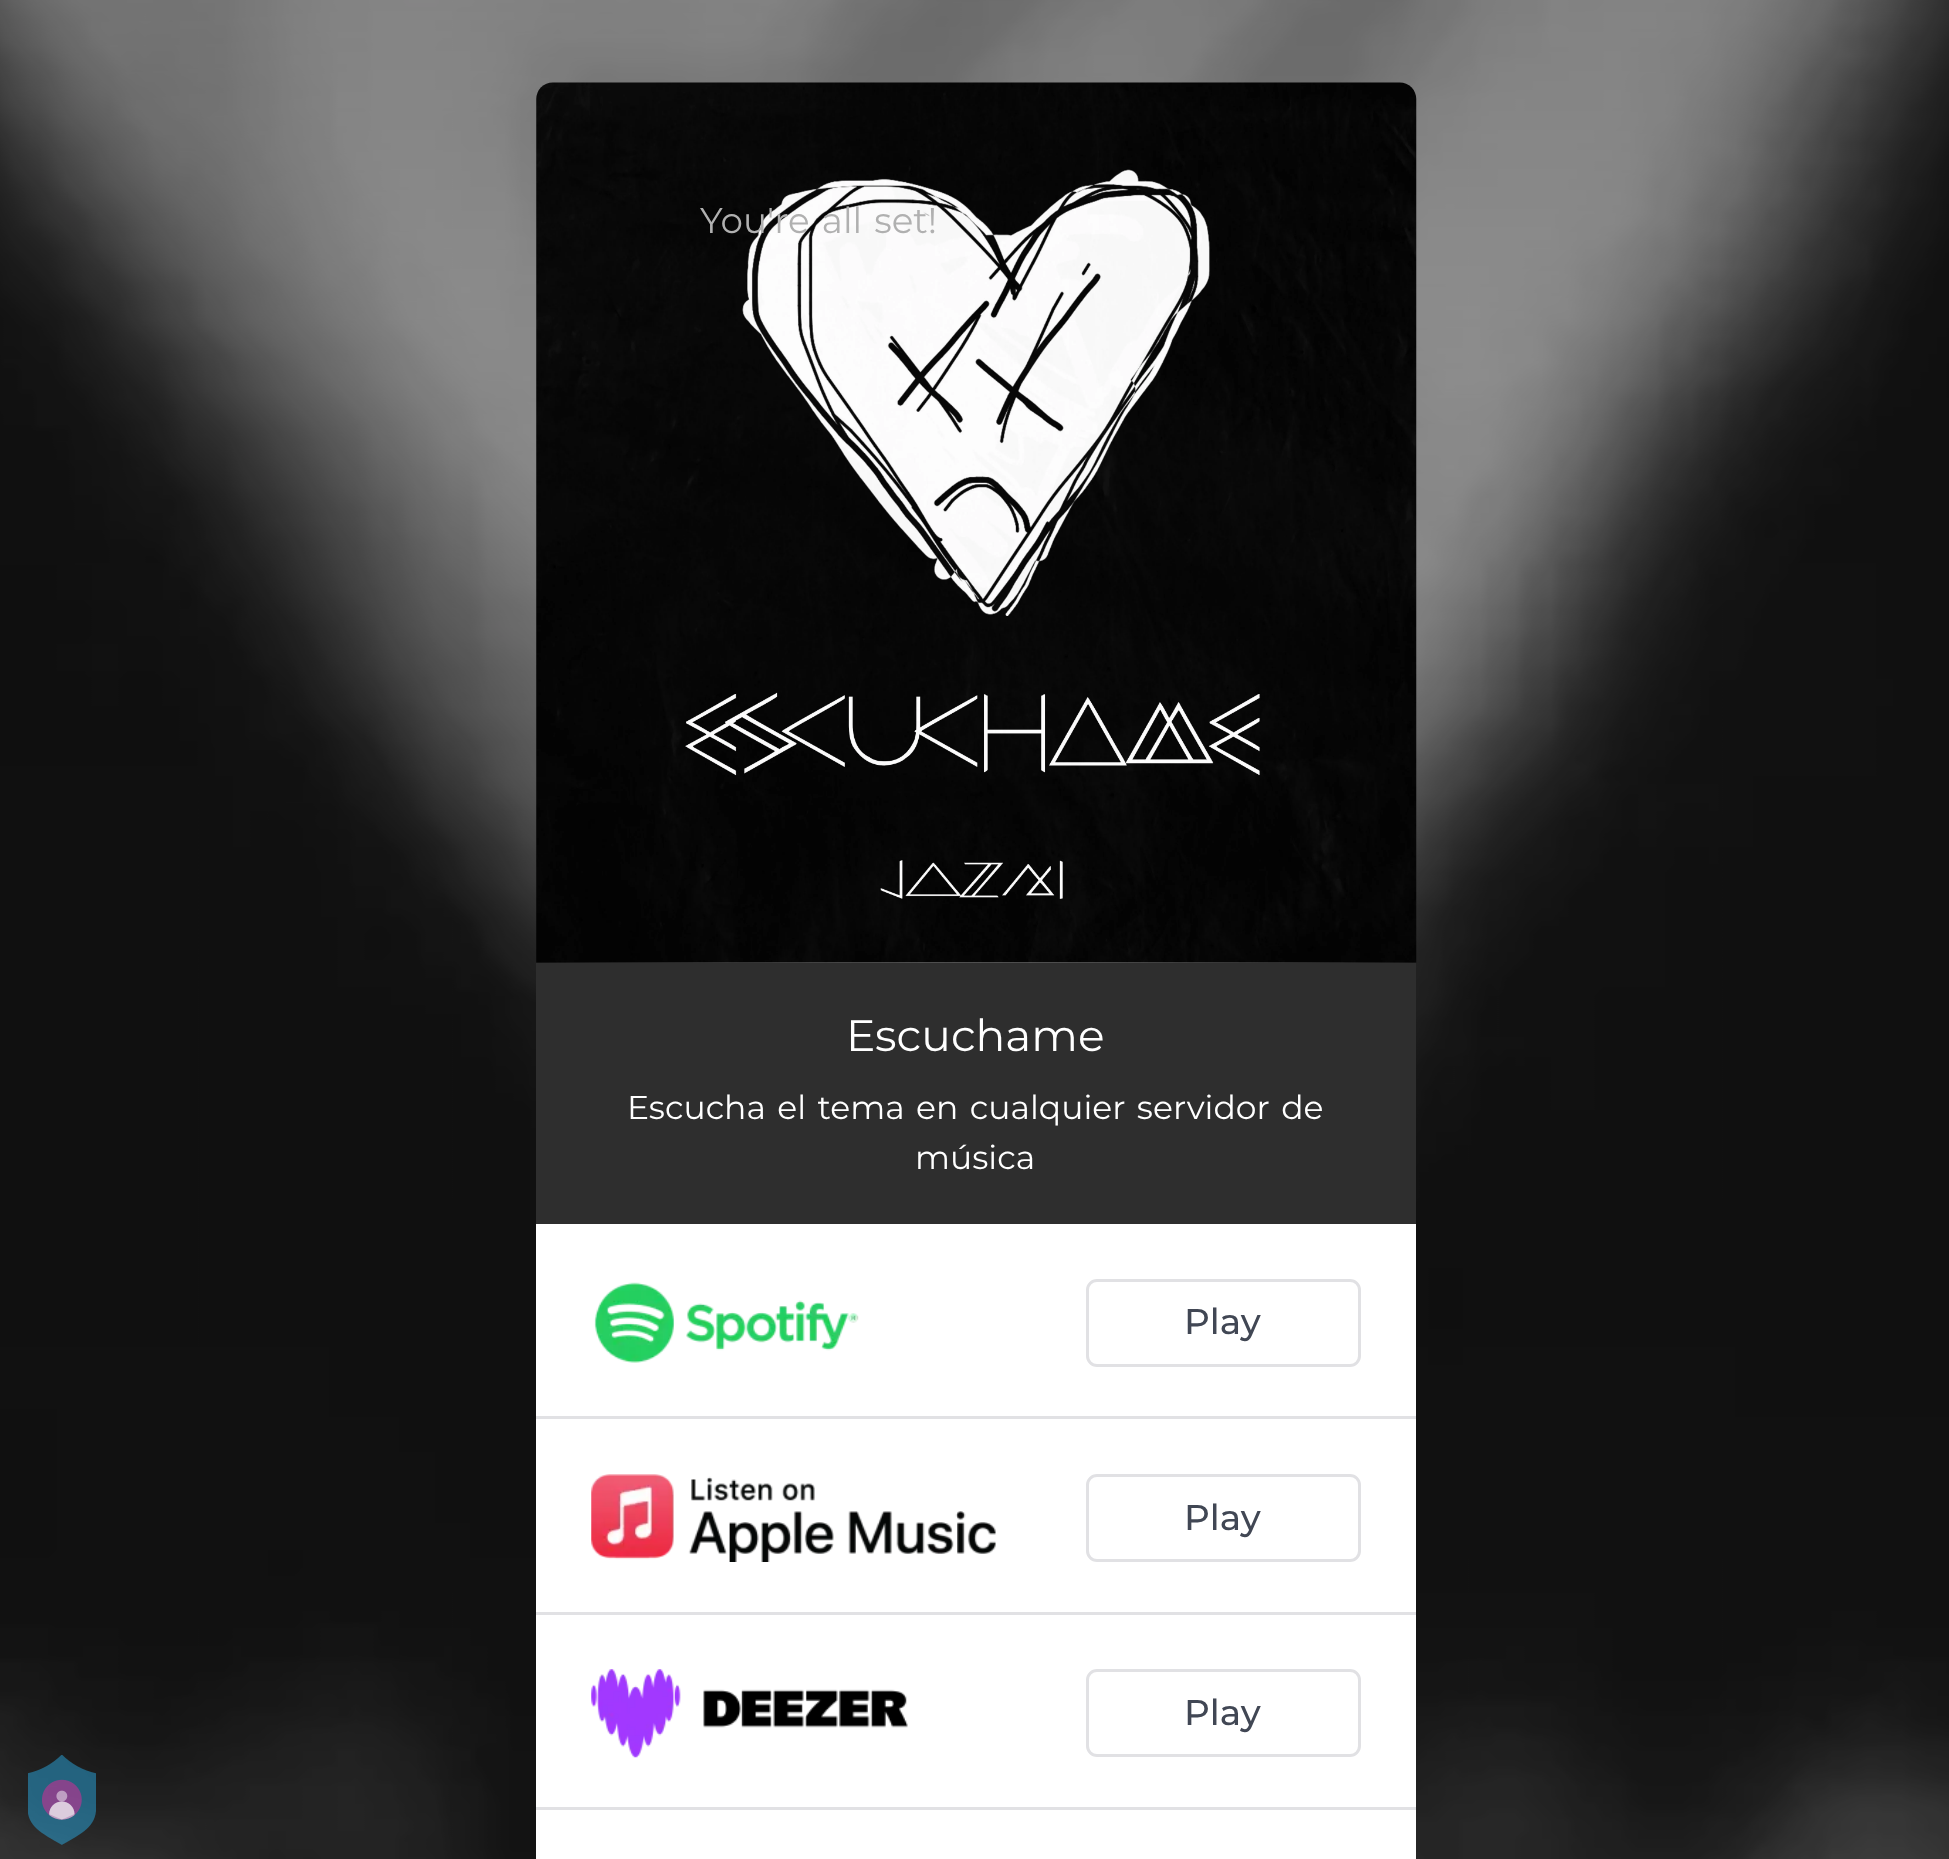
<svg xmlns="http://www.w3.org/2000/svg" xmlns:xlink="http://www.w3.org/1999/xlink" width="1949" height="1859" viewBox="0 0 1949 1859">
<style>
.cls-1{font:35.75px Montserrat;fill:#b0b0b0}
.cls-2{font:44px Montserrat;fill:#ffffff}
.cls-3{font:33px Montserrat;fill:#ffffff}
.cls-4{font:500 35.75px Montserrat;fill:#414754}
</style>
<rect width="100%" height="100%" fill="#ffffff"/>
<image xlink:href="image0.png" x="0" y="0" width="1949" height="1859"/>
<image xlink:href="image1.png" x="536" y="82" width="881" height="881"/>
<rect fill="#2e2e2e" x="536" y="963" width="880" height="261"/>
<rect fill="#ffffff" x="536" y="1224" width="880" height="635"/>
<rect fill="#e1e1e4" x="536" y="1416" width="880" height="3"/>
<image xlink:href="image2.png" x="594" y="1282" width="265" height="81"/>
<rect fill="none" stroke="#e1e1e4" stroke-width="3" x="1087.5" y="1280.5" width="272" height="85" rx="9.5"/>
<rect fill="#e1e1e4" x="536" y="1612" width="880" height="3"/>
<image xlink:href="image3.png" x="591" y="1474" width="405" height="88"/>
<rect fill="none" stroke="#e1e1e4" stroke-width="3" x="1087.5" y="1475.5" width="272" height="85" rx="9.5"/>
<rect fill="#e1e1e4" x="536" y="1807" width="880" height="3"/>
<image xlink:href="image4.png" x="591" y="1669" width="317" height="89"/>
<rect fill="none" stroke="#e1e1e4" stroke-width="3" x="1087.5" y="1670.5" width="272" height="85" rx="9.5"/>
<image xlink:href="image5.png" x="28" y="1755" width="68" height="90"/>
<text class="cls-1" x="700" y="233" word-spacing="2.75">You're all set!</text>
<text class="cls-2" x="846" y="1051">Escuchame</text>
<text class="cls-3" x="627" y="1119" word-spacing="2.75">Escucha el tema en cualquier servidor de</text>
<text class="cls-3" x="915" y="1169">música</text>
<text class="cls-4" x="1184" y="1334">Play</text>
<text class="cls-4" x="1184" y="1530">Play</text>
<text class="cls-4" x="1184" y="1725">Play</text>
</svg>
